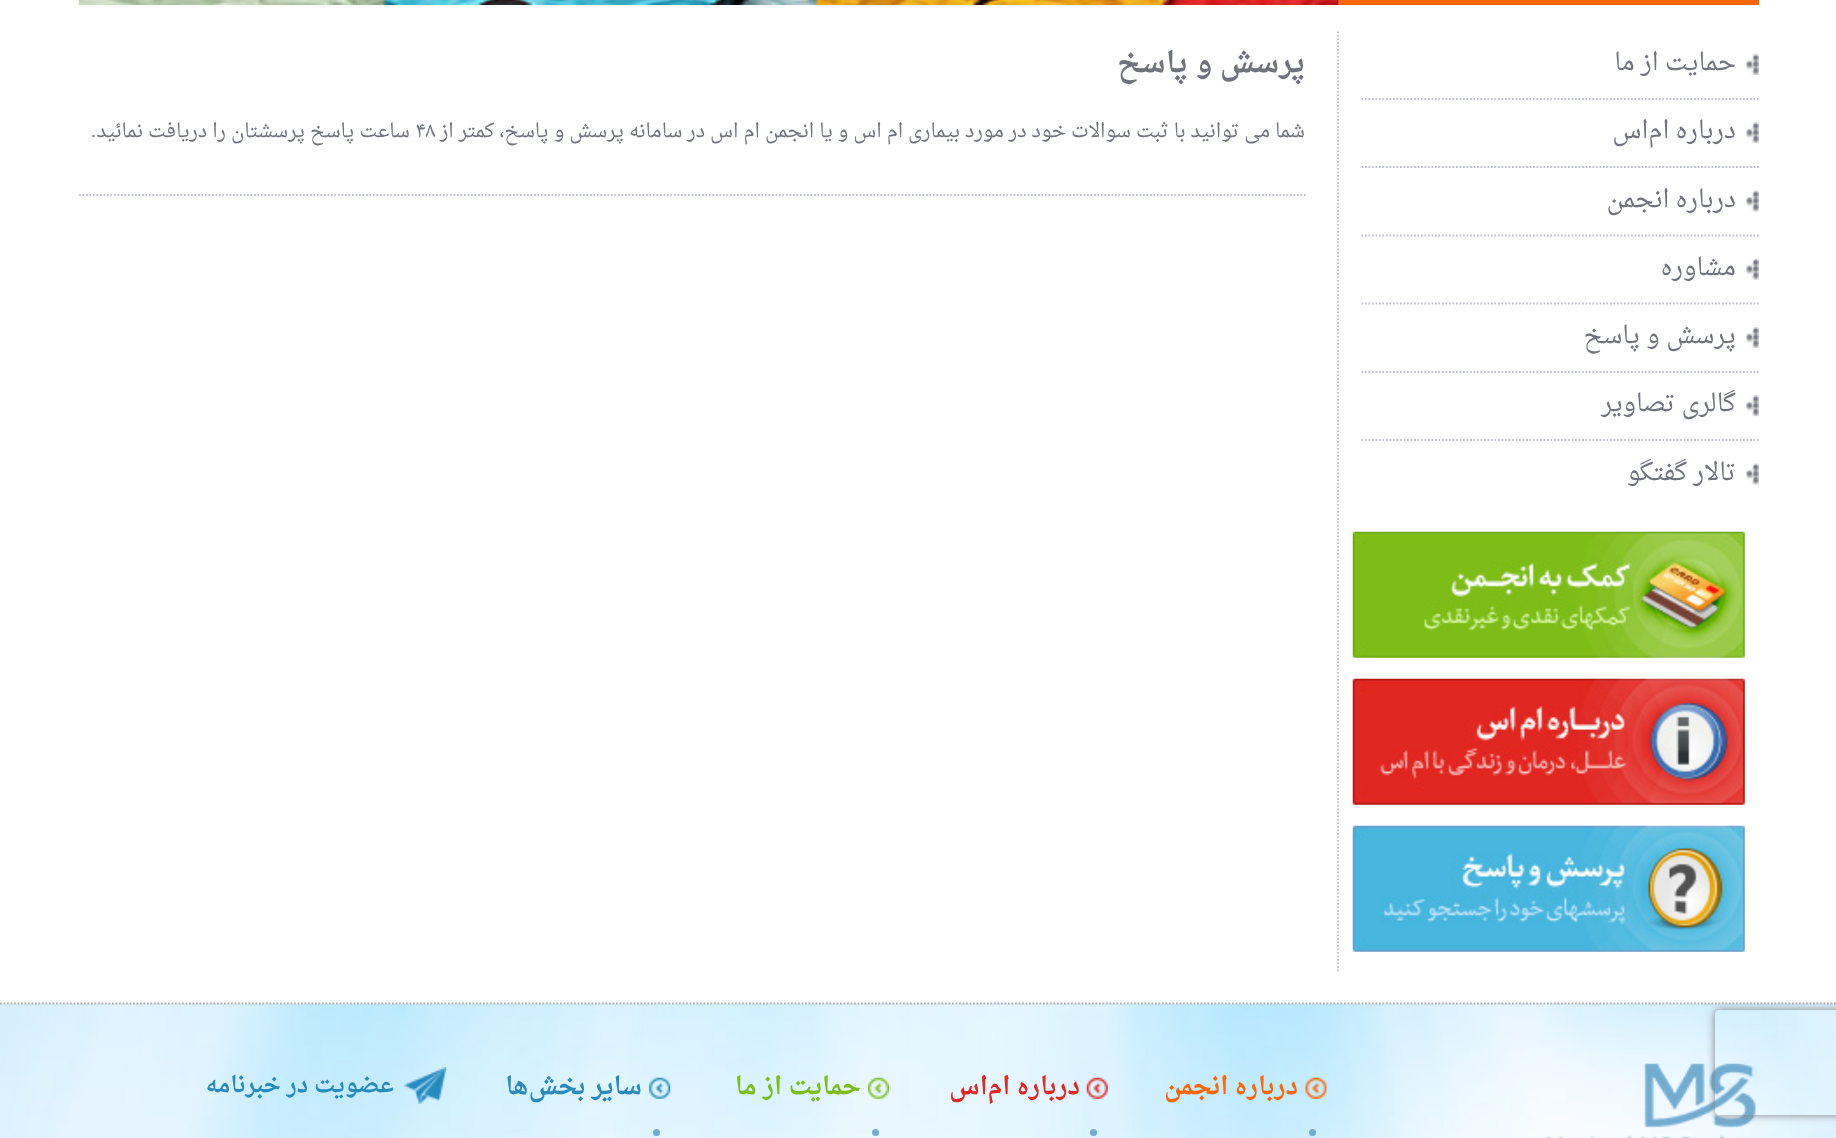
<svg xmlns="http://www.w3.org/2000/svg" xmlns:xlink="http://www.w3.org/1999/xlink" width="1836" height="1138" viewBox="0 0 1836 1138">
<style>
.cls-1{font:24.5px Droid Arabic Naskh;direction:rtl;fill:#70737c}
.cls-2{font:bold 29px Droid Arabic Naskh;direction:rtl;fill:#70737c}
.cls-3{font:19.25px Droid Arabic Naskh;direction:rtl;fill:#70737c}
.cls-4{font:19.25px Droid Arabic Naskh;fill:#70737c}
.cls-5{font:19.25px Liberation Sans;direction:rtl;fill:#70737c}
.cls-6{font:bold 24.5px Droid Arabic Naskh;direction:rtl;fill:#ff6600}
.cls-7{font:bold 24.5px Droid Arabic Naskh;direction:rtl;fill:#e12721}
.cls-8{font:bold 24.5px Droid Arabic Naskh;direction:rtl;fill:#7ebd17}
.cls-9{font:bold 24.5px Droid Arabic Naskh;direction:rtl;fill:#288bbf}
.cls-10{font:bold 22.5px Droid Arabic Naskh;direction:rtl;fill:#288bbf}
</style>
<defs>
<clipPath id="clip1"><path d="M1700 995H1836V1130H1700ZM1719 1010H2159C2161 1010 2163 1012 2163 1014V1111C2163 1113 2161 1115 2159 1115H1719C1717 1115 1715 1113 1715 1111V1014C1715 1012 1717 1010 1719 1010Z" clip-rule="evenodd"/></clipPath>
</defs>
<rect width="100%" height="100%" fill="#ffffff"/>
<rect fill="#ff6600" x="1339" y="0" width="420" height="5"/>
<image xlink:href="image0.png" x="78" y="0" width="1261" height="5"/>
<path fill="none" stroke="#bec1cd" stroke-width="1.8" stroke-dasharray="1.75 1.75" d="M1338 31.5V973"/>
<path fill="none" stroke="#bec1cd" stroke-width="1.8" stroke-dasharray="1.75 1.75" d="M1361.5 99H1759"/>
<image xlink:href="image1.png" x="1746" y="54" width="13" height="21"/>
<path fill="none" stroke="#bec1cd" stroke-width="1.8" stroke-dasharray="1.75 1.75" d="M1361.5 167H1759"/>
<image xlink:href="image2.png" x="1746" y="122" width="13" height="22"/>
<path fill="none" stroke="#bec1cd" stroke-width="1.8" stroke-dasharray="1.75 1.75" d="M1361.5 235.5H1759"/>
<image xlink:href="image3.png" x="1746" y="190" width="13" height="22"/>
<path fill="none" stroke="#bec1cd" stroke-width="1.8" stroke-dasharray="1.75 1.75" d="M1361.5 303.5H1759"/>
<image xlink:href="image4.png" x="1746" y="258" width="13" height="22"/>
<path fill="none" stroke="#bec1cd" stroke-width="1.8" stroke-dasharray="1.75 1.75" d="M1361.5 372H1759"/>
<image xlink:href="image1.png" x="1746" y="327" width="13" height="21"/>
<path fill="none" stroke="#bec1cd" stroke-width="1.8" stroke-dasharray="1.75 1.75" d="M1361.5 440H1759"/>
<image xlink:href="image2.png" x="1746" y="395" width="13" height="22"/>
<image xlink:href="image3.png" x="1746" y="463" width="13" height="22"/>
<image xlink:href="image5.png" x="1352" y="531" width="393" height="127"/>
<image xlink:href="image6.png" x="1352" y="678" width="393" height="127"/>
<image xlink:href="image7.png" x="1352" y="825" width="393" height="127"/>
<path fill="none" stroke="#bec1cd" stroke-width="1.8" stroke-dasharray="1.75 1.75" d="M79 195H1305.5"/>
<rect fill="#e2f2ff" x="0" y="1003" width="1836" height="2"/>
<image xlink:href="image8.png" x="0" y="1004" width="1836" height="134"/>
<path fill="none" stroke="#afafaf" stroke-width="1.8" stroke-dasharray="1.75 1.75" d="M0 1003.5H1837.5"/>
<image xlink:href="image9.png" x="1546" y="1063" width="210" height="75"/>
<g clip-path="url(#clip1)">
<rect fill="#808080" filter="blur(4.5px)" x="1715" y="1010" width="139" height="105" rx="4"/>
</g>
<image xlink:href="image10.png" x="1305" y="1077" width="22" height="22"/>
<circle fill="#72add1" cx="1312.5" cy="1132.5" r="3.5"/>
<image xlink:href="image11.png" x="1086" y="1077" width="22" height="22"/>
<circle fill="#72add1" cx="1093.5" cy="1132.5" r="3.5"/>
<image xlink:href="image12.png" x="868" y="1077" width="21" height="22"/>
<circle fill="#72add1" cx="875.5" cy="1132.5" r="3.5"/>
<image xlink:href="image13.png" x="649" y="1077" width="22" height="22"/>
<circle fill="#72add1" cx="656.5" cy="1132.5" r="3.5"/>
<image xlink:href="image14.png" x="404" y="1067" width="43" height="37"/>
<text class="cls-1" x="1736" y="70">حمایت از ما</text>
<text class="cls-1" x="1736" y="138">درباره ام‌اس</text>
<text class="cls-1" x="1736" y="207">درباره انجمن</text>
<text class="cls-1" x="1736" y="275">مشاوره</text>
<text class="cls-1" x="1736" y="343">پرسش و پاسخ</text>
<text class="cls-1" x="1736" y="411">گالری تصاویر</text>
<text class="cls-1" x="1736" y="480">تالار گفتگو</text>
<text class="cls-2" x="1305" y="72">پرسش و پاسخ</text>
<text class="cls-3" x="1305" y="137">شما می توانید با ثبت سوالات خود در مورد بیماری ام اس و یا انجمن ام اس در سامانه پرسش و پاسخ، کمتر از</text>
<text class="cls-4" x="415" y="137">۴۸</text>
<text class="cls-3" x="410" y="137">ساعت پاسخ پرسشتان را دریافت نمائید</text>
<text class="cls-5" x="96" y="137">.</text>
<text class="cls-6" x="1298" y="1094">درباره انجمن</text>
<text class="cls-7" x="1080" y="1094">درباره ام‌اس</text>
<text class="cls-8" x="861" y="1094">حمایت از ما</text>
<text class="cls-9" x="642" y="1094">سایر بخش‌ها</text>
<text class="cls-10" x="394" y="1092">عضویت در خبرنامه</text>
</svg>
